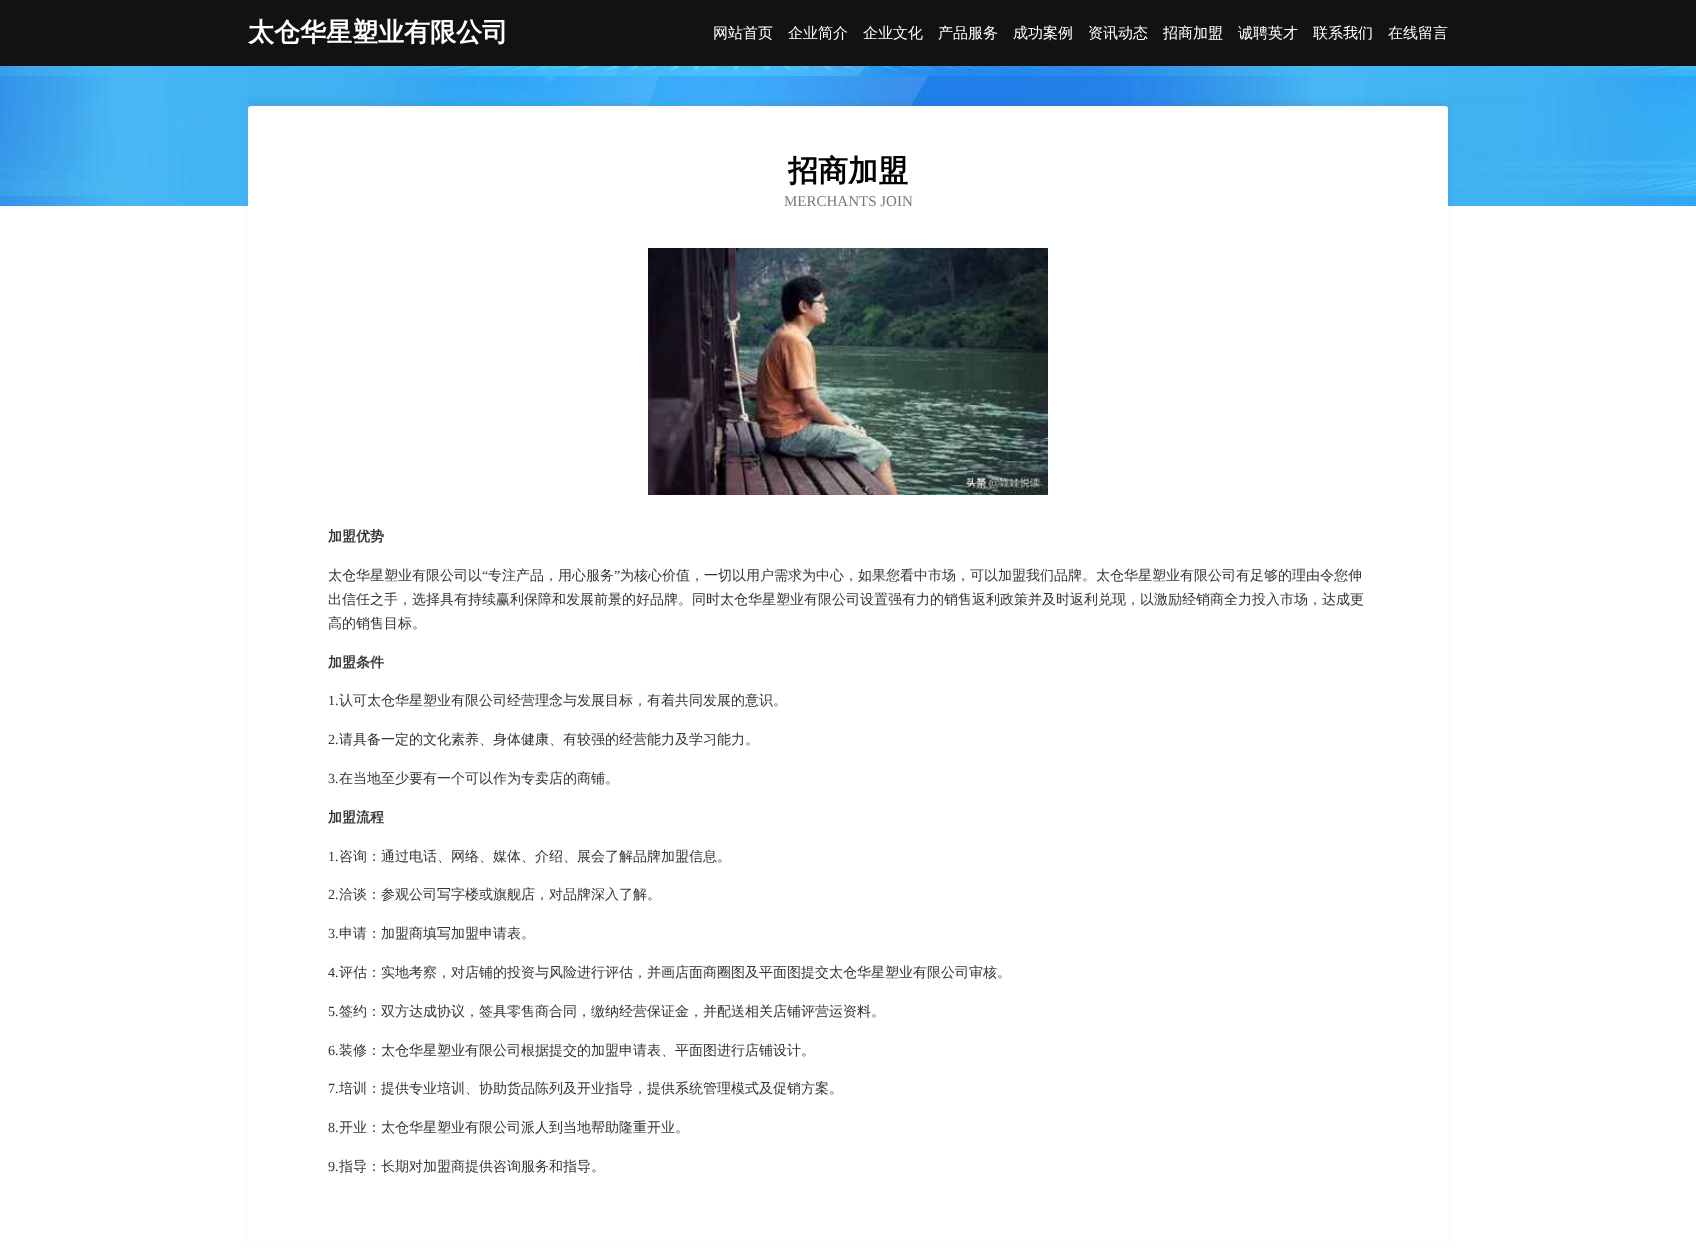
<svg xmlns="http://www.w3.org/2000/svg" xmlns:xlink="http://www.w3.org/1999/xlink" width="1696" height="1255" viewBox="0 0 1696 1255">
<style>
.cls-1{font:bold 26px WenQuanYi Zen Hei;fill:#ffffff}
.cls-2{font:500 15px WenQuanYi Zen Hei;fill:#ffffff}
.cls-3{font:bold 30px WenQuanYi Zen Hei;fill:#000000}
.cls-4{font:15px Liberation Serif;fill:#787878}
.cls-5{font:bold 14px WenQuanYi Zen Hei;fill:#343434}
.cls-6{font:500 14px WenQuanYi Zen Hei;fill:#343434}
.cls-7{font:14px Liberation Serif;fill:#343434}
</style>
<rect width="100%" height="100%" fill="#ffffff"/>
<rect fill="#121212" x="0" y="0" width="1696" height="66"/>
<image xlink:href="image0.png" x="0" y="66" width="1696" height="140"/>
<rect fill="#424242" fill-opacity="0.09" filter="blur(4.5px)" x="249" y="102" width="1198" height="1136" rx="2"/>
<rect fill="#ffffff" x="248" y="106" width="1200" height="1138" rx="3"/>
<image xlink:href="image1.png" x="648" y="248" width="400" height="247"/>
<text class="cls-1" x="248" y="41">太仓华星塑业有限公司</text>
<text class="cls-2" x="713" y="38">网站首页</text>
<text class="cls-2" x="788" y="38">企业简介</text>
<text class="cls-2" x="863" y="38">企业文化</text>
<text class="cls-2" x="938" y="38">产品服务</text>
<text class="cls-2" x="1013" y="38">成功案例</text>
<text class="cls-2" x="1088" y="38">资讯动态</text>
<text class="cls-2" x="1163" y="38">招商加盟</text>
<text class="cls-2" x="1238" y="38">诚聘英才</text>
<text class="cls-2" x="1313" y="38">联系我们</text>
<text class="cls-2" x="1388" y="38">在线留言</text>
<text class="cls-3" x="788" y="181">招商加盟</text>
<text class="cls-4" x="784" y="206">MERCHANTS JOIN</text>
<text class="cls-5" x="328" y="541">加盟优势</text>
<text class="cls-6" x="328" y="580">太仓华星塑业有限公司以</text>
<text class="cls-7" x="482" y="580">“</text>
<text class="cls-6" x="488" y="580">专注产品，用心服务</text>
<text class="cls-7" x="614" y="580">”</text>
<text class="cls-6" x="620" y="580">为核心价值，一切以用户需求为中心，如果您看中市场，可以加盟我们品牌。太仓华星塑业有限公司有足够的理由令您伸</text>
<text class="cls-6"><tspan x="328" y="604">出信任之手，选择具有持续赢利保障和发展前景的好品牌。同时太仓华星塑业有限公司设置强有力的销售返利政策并及时返利兑现，以激励经销商全力投入市场，达成更</tspan><tspan x="328" y="628">高的销售目标。</tspan></text>
<text class="cls-5" x="328" y="667">加盟条件</text>
<text class="cls-7" x="328" y="705">1.</text>
<text class="cls-6" x="339" y="705">认可太仓华星塑业有限公司经营理念与发展目标，有着共同发展的意识。</text>
<text class="cls-7" x="328" y="744">2.</text>
<text class="cls-6" x="339" y="744">请具备一定的文化素养、身体健康、有较强的经营能力及学习能力。</text>
<text class="cls-7" x="328" y="783">3.</text>
<text class="cls-6" x="339" y="783">在当地至少要有一个可以作为专卖店的商铺。</text>
<text class="cls-5" x="328" y="822">加盟流程</text>
<text class="cls-7" x="328" y="861">1.</text>
<text class="cls-6" x="339" y="861">咨询：通过电话、网络、媒体、介绍、展会了解品牌加盟信息。</text>
<text class="cls-7" x="328" y="899">2.</text>
<text class="cls-6" x="339" y="899">洽谈：参观公司写字楼或旗舰店，对品牌深入了解。</text>
<text class="cls-7" x="328" y="938">3.</text>
<text class="cls-6" x="339" y="938">申请：加盟商填写加盟申请表。</text>
<text class="cls-7" x="328" y="977">4.</text>
<text class="cls-6" x="339" y="977">评估：实地考察，对店铺的投资与风险进行评估，并画店面商圈图及平面图提交太仓华星塑业有限公司审核。</text>
<text class="cls-7" x="328" y="1016">5.</text>
<text class="cls-6" x="339" y="1016">签约：双方达成协议，签具零售商合同，缴纳经营保证金，并配送相关店铺评营运资料。</text>
<text class="cls-7" x="328" y="1055">6.</text>
<text class="cls-6" x="339" y="1055">装修：太仓华星塑业有限公司根据提交的加盟申请表、平面图进行店铺设计。</text>
<text class="cls-7" x="328" y="1093">7.</text>
<text class="cls-6" x="339" y="1093">培训：提供专业培训、协助货品陈列及开业指导，提供系统管理模式及促销方案。</text>
<text class="cls-7" x="328" y="1132">8.</text>
<text class="cls-6" x="339" y="1132">开业：太仓华星塑业有限公司派人到当地帮助隆重开业。</text>
<text class="cls-7" x="328" y="1171">9.</text>
<text class="cls-6" x="339" y="1171">指导：长期对加盟商提供咨询服务和指导。</text>
</svg>
